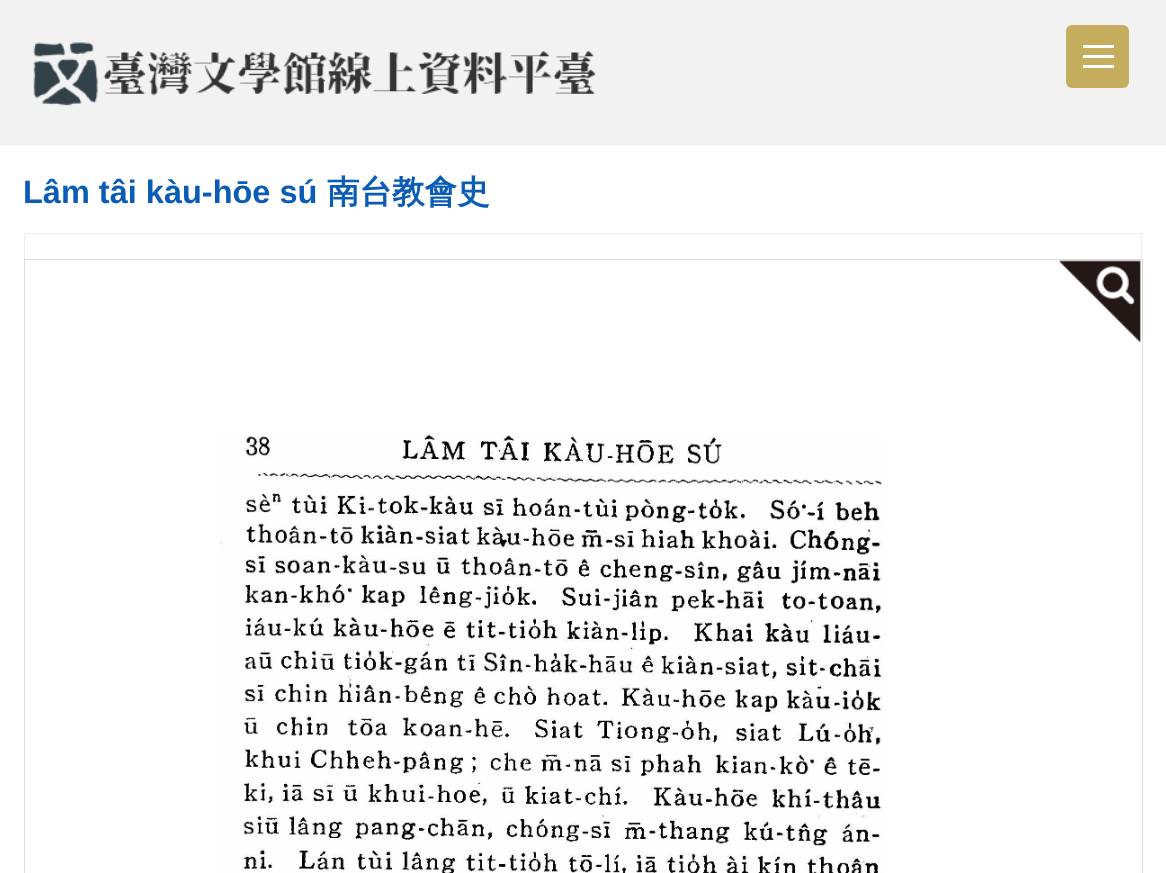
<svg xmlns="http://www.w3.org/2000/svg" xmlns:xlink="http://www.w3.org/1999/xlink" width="1166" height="873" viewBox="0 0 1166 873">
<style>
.cls-1{font:bold 32.5px Liberation Sans;fill:#0b5cb7}
.cls-2{font:bold 32.5px WenQuanYi Zen Hei;fill:#0b5cb7}
</style>
<rect width="100%" height="100%" fill="#ffffff"/>
<rect fill="#f2f2f2" x="0" y="0" width="1166" height="145"/>
<image xlink:href="image0.png" x="33" y="42" width="563" height="64"/>
<rect fill="#c5af5e" x="1066" y="25" width="63" height="63" rx="6"/>
<rect fill="#ffffff" x="1083" y="55" width="31" height="3"/>
<rect fill="#ffffff" x="1083" y="45" width="31" height="3"/>
<rect fill="#ffffff" x="1083" y="65" width="31" height="3"/>
<rect fill="#eeeeee" x="24" y="233" width="1119" height="1"/>
<rect fill="#eeeeee" x="1141" y="233" width="1" height="26"/>
<rect fill="#eeeeee" x="24" y="233" width="1" height="26"/>
<rect fill="none" stroke="#dddddd" x="24.5" y="259.5" width="1118" height="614"/>
<image xlink:href="image1.png" x="1058" y="260" width="83" height="83"/>
<image xlink:href="image2.png" x="219" y="433" width="663" height="440"/>
<text class="cls-1" x="23" y="203">Lâm tâi kàu-hōe sú</text>
<text class="cls-2" x="327" y="203">南台教會史</text>
</svg>
